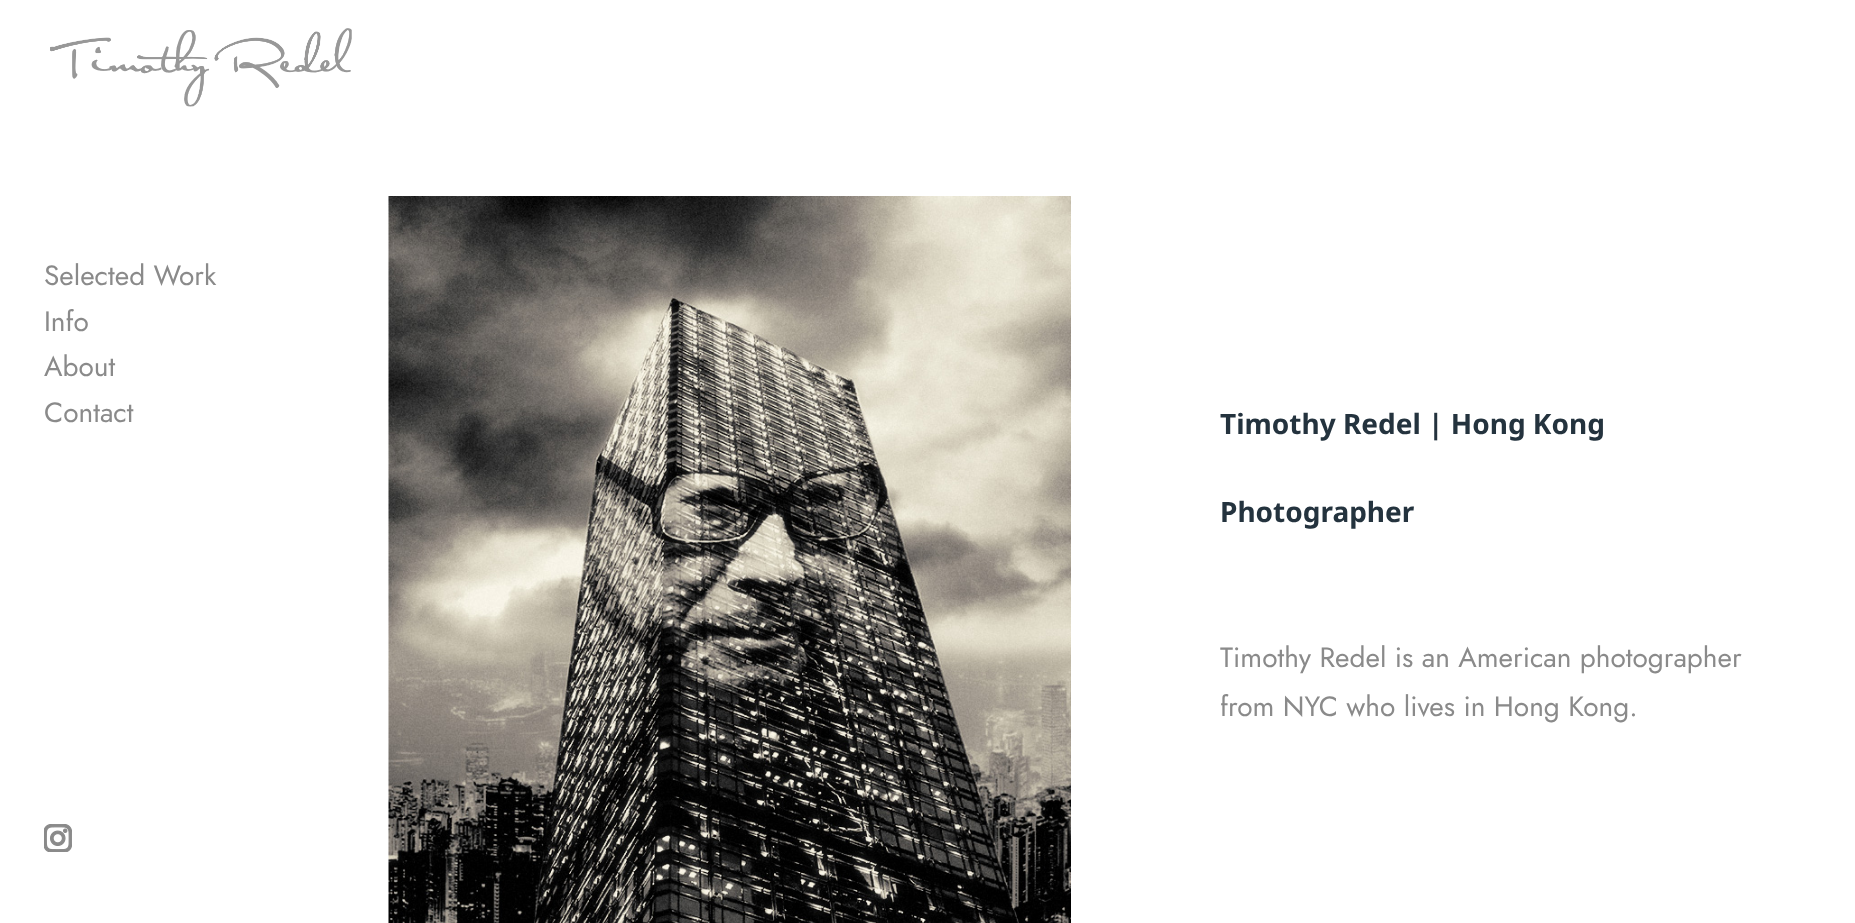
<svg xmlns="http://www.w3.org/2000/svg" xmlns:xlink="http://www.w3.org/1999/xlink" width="1855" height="923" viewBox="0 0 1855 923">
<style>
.cls-1{font:28px Jost;fill:#8a8a8a}
.cls-2{font:bold 28px Noto Sans;fill:#24333e}
</style>
<rect width="100%" height="100%" fill="#ffffff"/>
<image xlink:href="image0.png" x="50" y="28" width="302" height="79"/>
<image xlink:href="image1.png" x="44" y="824" width="28" height="28"/>
<image xlink:href="image2.png" x="388" y="196" width="683" height="727"/>
<text class="cls-1"><tspan x="44" y="285">Selected Work</tspan><tspan x="44" y="331">Info</tspan><tspan x="44" y="376">About</tspan><tspan x="44" y="422">Contact</tspan></text>
<text class="cls-2" x="1220" y="434">Timothy Redel | Hong Kong</text>
<text class="cls-2" x="1220" y="522">Photographer</text>
<text class="cls-1"><tspan x="1220" y="667">Timothy Redel is an American photographer</tspan><tspan x="1220" y="716">from NYC who lives in Hong Kong.</tspan></text>
</svg>
